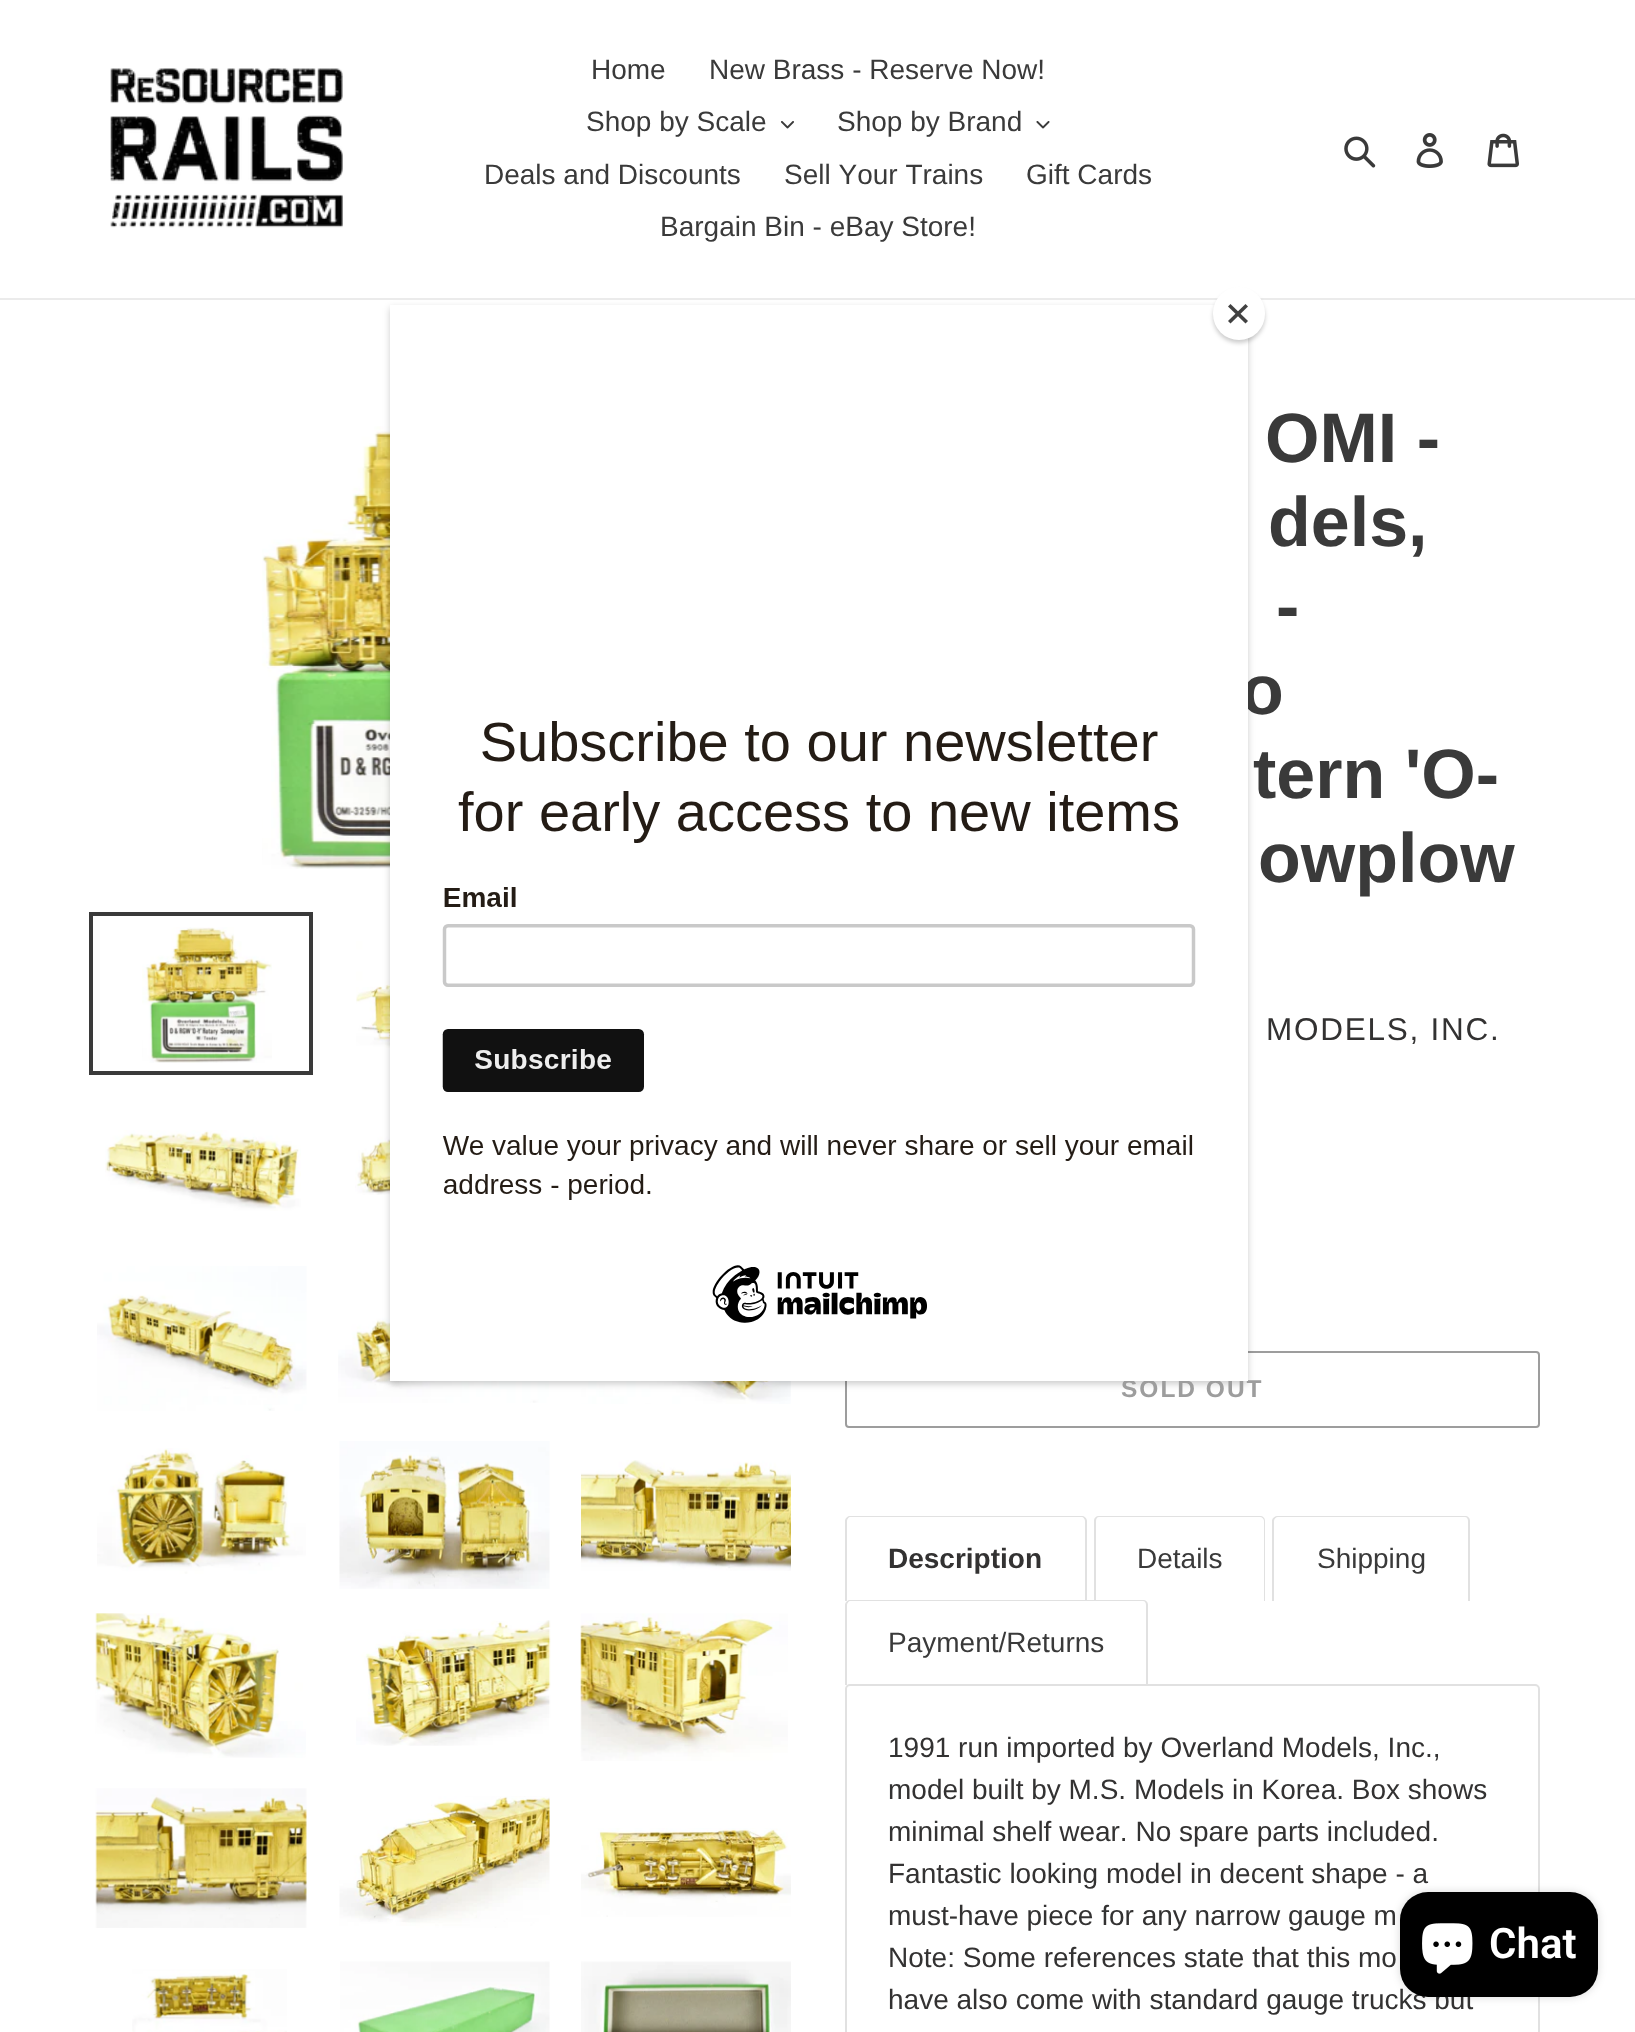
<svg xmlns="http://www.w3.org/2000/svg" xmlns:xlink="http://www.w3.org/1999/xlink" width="1635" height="2032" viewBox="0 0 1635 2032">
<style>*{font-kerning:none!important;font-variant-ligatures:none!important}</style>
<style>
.cls-1{font:28px Arimo;fill:#3a3a3a}
.cls-2{font:bold 70px Arimo;fill:#3a3a3a}
.cls-3{font:31.5px Arimo;letter-spacing:1.75px;fill:#333232}
.cls-4{font:bold 24.5px Arimo;letter-spacing:2px;fill:#9d9d9d}
.cls-5{font:bold 28px Arimo;fill:#333232}
.cls-6{font:28px Arimo;fill:#333232}
.cls-7{font:600 42px Roboto;fill:#ffffff}
</style>
<defs>
<clipPath id="clip1"><path d="M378 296H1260V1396H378ZM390 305H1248V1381H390Z" clip-rule="evenodd"/></clipPath>
</defs>
<rect width="100%" height="100%" fill="#ffffff"/>
<rect fill="#ebebeb" x="0" y="298" width="1635" height="2"/>
<image xlink:href="image0.png" x="110" y="68" width="233" height="160"/>
<image xlink:href="image1.png" x="781" y="121" width="13" height="8"/>
<image xlink:href="image2.png" x="1036" y="121" width="14" height="8"/>
<image xlink:href="image3.png" x="1344" y="136" width="32" height="32"/>
<image xlink:href="image4.png" x="1416" y="133" width="27" height="35"/>
<image xlink:href="image5.png" x="1487" y="133" width="32" height="35"/>
<image xlink:href="image7.png" x="262" y="426" width="128" height="443"/>
<image xlink:href="image9.png" x="356" y="931" width="34" height="117"/>
<image xlink:href="image11.png" x="355" y="1128" width="35" height="67"/>
<image xlink:href="image13.png" x="338" y="1266" width="211" height="137"/>
<image xlink:href="image14.png" x="581" y="1381" width="210" height="23"/>
<rect fill="none" stroke="#9d9d9d" stroke-width="2" x="846" y="1352" width="693" height="75" rx="3"/>
<g clip-path="url(#clip1)">
<rect fill="#000000" fill-opacity="0.2" filter="blur(3.5px)" x="390" y="308" width="858" height="1076"/>
</g>
<rect fill="none" stroke="#3a3a3a" stroke-width="4" x="91" y="914" width="220" height="159"/>
<image xlink:href="image8.png" x="142" y="927" width="130" height="136"/>
<image xlink:href="image10.png" x="105" y="1130" width="196" height="81"/>
<image xlink:href="image12.png" x="97" y="1266" width="210" height="145"/>
<image xlink:href="image15.png" x="97" y="1448" width="209" height="126"/>
<image xlink:href="image16.png" x="339" y="1441" width="211" height="148"/>
<image xlink:href="image17.png" x="581" y="1460" width="210" height="111"/>
<image xlink:href="image18.png" x="95" y="1613" width="211" height="145"/>
<image xlink:href="image19.png" x="356" y="1620" width="195" height="126"/>
<image xlink:href="image20.png" x="580" y="1613" width="208" height="148"/>
<image xlink:href="image21.png" x="95" y="1788" width="212" height="140"/>
<image xlink:href="image22.png" x="339" y="1796" width="211" height="132"/>
<image xlink:href="image23.png" x="581" y="1828" width="210" height="89"/>
<image xlink:href="image24.png" x="132" y="1969" width="155" height="63"/>
<image xlink:href="image25.png" x="340" y="1961" width="210" height="71"/>
<image xlink:href="image26.png" x="581" y="1961" width="210" height="71"/>
<path fill="#e1e1e1" fill-rule="evenodd" d="M850 1516H1082C1084 1516 1087 1518 1087 1521V1601H845V1521C845 1518 848 1516 850 1516ZM850 1517H1082C1083 1517 1085 1519 1085 1521V1601H847V1521C847 1519 849 1517 850 1517Z"/>
<path fill="#e1e1e1" fill-rule="evenodd" d="M1099 1516H1260C1263 1516 1265 1518 1265 1521V1601H1094V1521C1094 1518 1096 1516 1099 1516ZM1099 1517H1260C1262 1517 1264 1519 1264 1521V1601H1096V1521C1096 1519 1097 1517 1099 1517Z"/>
<path fill="#e1e1e1" fill-rule="evenodd" d="M1278 1516H1465C1468 1516 1470 1518 1470 1521V1601H1272V1521C1272 1518 1275 1516 1278 1516ZM1278 1517H1465C1467 1517 1468 1519 1468 1521V1601H1274V1521C1274 1519 1276 1517 1278 1517Z"/>
<rect fill="none" stroke="#e1e1e1" stroke-width="2" x="846" y="1685" width="693" height="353" rx="4"/>
<path fill="#e1e1e1" fill-rule="evenodd" d="M850 1600H1143C1146 1600 1148 1602 1148 1605V1685H845V1605C845 1602 848 1600 850 1600ZM850 1601H1143C1145 1601 1146 1603 1146 1605V1685H847V1605C847 1603 849 1601 850 1601Z"/>
<rect fill="#000000" fill-opacity="0.15" filter="blur(4.5px)" x="1400" y="1892" width="198" height="105" rx="28"/>
<text class="cls-1" x="591" y="79">Home</text>
<text class="cls-1" x="709" y="79">New Brass - Reserve Now!</text>
<text class="cls-1" x="586" y="131">Shop by Scale</text>
<text class="cls-1" x="837" y="131">Shop by Brand</text>
<text class="cls-1" x="484" y="184">Deals and Discounts</text>
<text class="cls-1" x="784" y="184">Sell Your Trains</text>
<text class="cls-1" x="1026" y="184">Gift Cards</text>
<text class="cls-1" x="660" y="236">Bargain Bin - eBay Store!</text>
<text class="cls-2" x="1265" y="462">OMI -</text>
<text class="cls-2" x="1268" y="546">dels,</text>
<text class="cls-2" x="1276" y="630">-</text>
<text class="cls-2" x="1241" y="714">o</text>
<text class="cls-2" x="1253" y="798">tern 'O-</text>
<text class="cls-2" x="1258" y="882">owplow</text>
<text class="cls-3" x="1266" y="1040">MODELS, INC.</text>
<text class="cls-4" x="1121" y="1397">SOLD OUT</text>
<image xlink:href="image6.png" x="390" y="309" width="858" height="1072"/>
<rect fill="#000000" fill-opacity="0.2" filter="blur(2px)" x="1213" y="291" width="52" height="52" rx="26"/>
<rect fill="#ffffff" x="1213" y="287" width="52" height="53" rx="26"/>
<path fill="#414141" d="M1245.5 304L1248 306.5L1230.5 323.5L1228 321Z"/>
<path fill="#414141" d="M1228 306.5L1230.5 304L1248 321L1245.5 323.5Z"/>
<text class="cls-5" x="888" y="1568">Description</text>
<text class="cls-1" x="1137" y="1568">Details</text>
<text class="cls-1" x="1317" y="1568">Shipping</text>
<text class="cls-1" x="888" y="1652">Payment/Returns</text>
<text class="cls-6"><tspan x="888" y="1757">1991 run imported by Overland Models, Inc.,</tspan><tspan x="888" y="1799">model built by M.S. Models in Korea. Box shows</tspan><tspan x="888" y="1841">minimal shelf wear. No spare parts included.</tspan><tspan x="888" y="1883">Fantastic looking model in decent shape - a</tspan><tspan x="888" y="1925">must-have piece for any narrow gauge m</tspan><tspan x="888" y="1967">Note: Some references state that this mo</tspan><tspan x="888" y="2009">have also come with standard gauge trucks but</tspan></text>
<rect fill="#000000" x="1400" y="1892" width="198" height="105" rx="28"/>
<image xlink:href="image27.png" x="1422" y="1923" width="51" height="51"/>
<text class="cls-7" x="1489" y="1958">Chat</text>
</svg>
